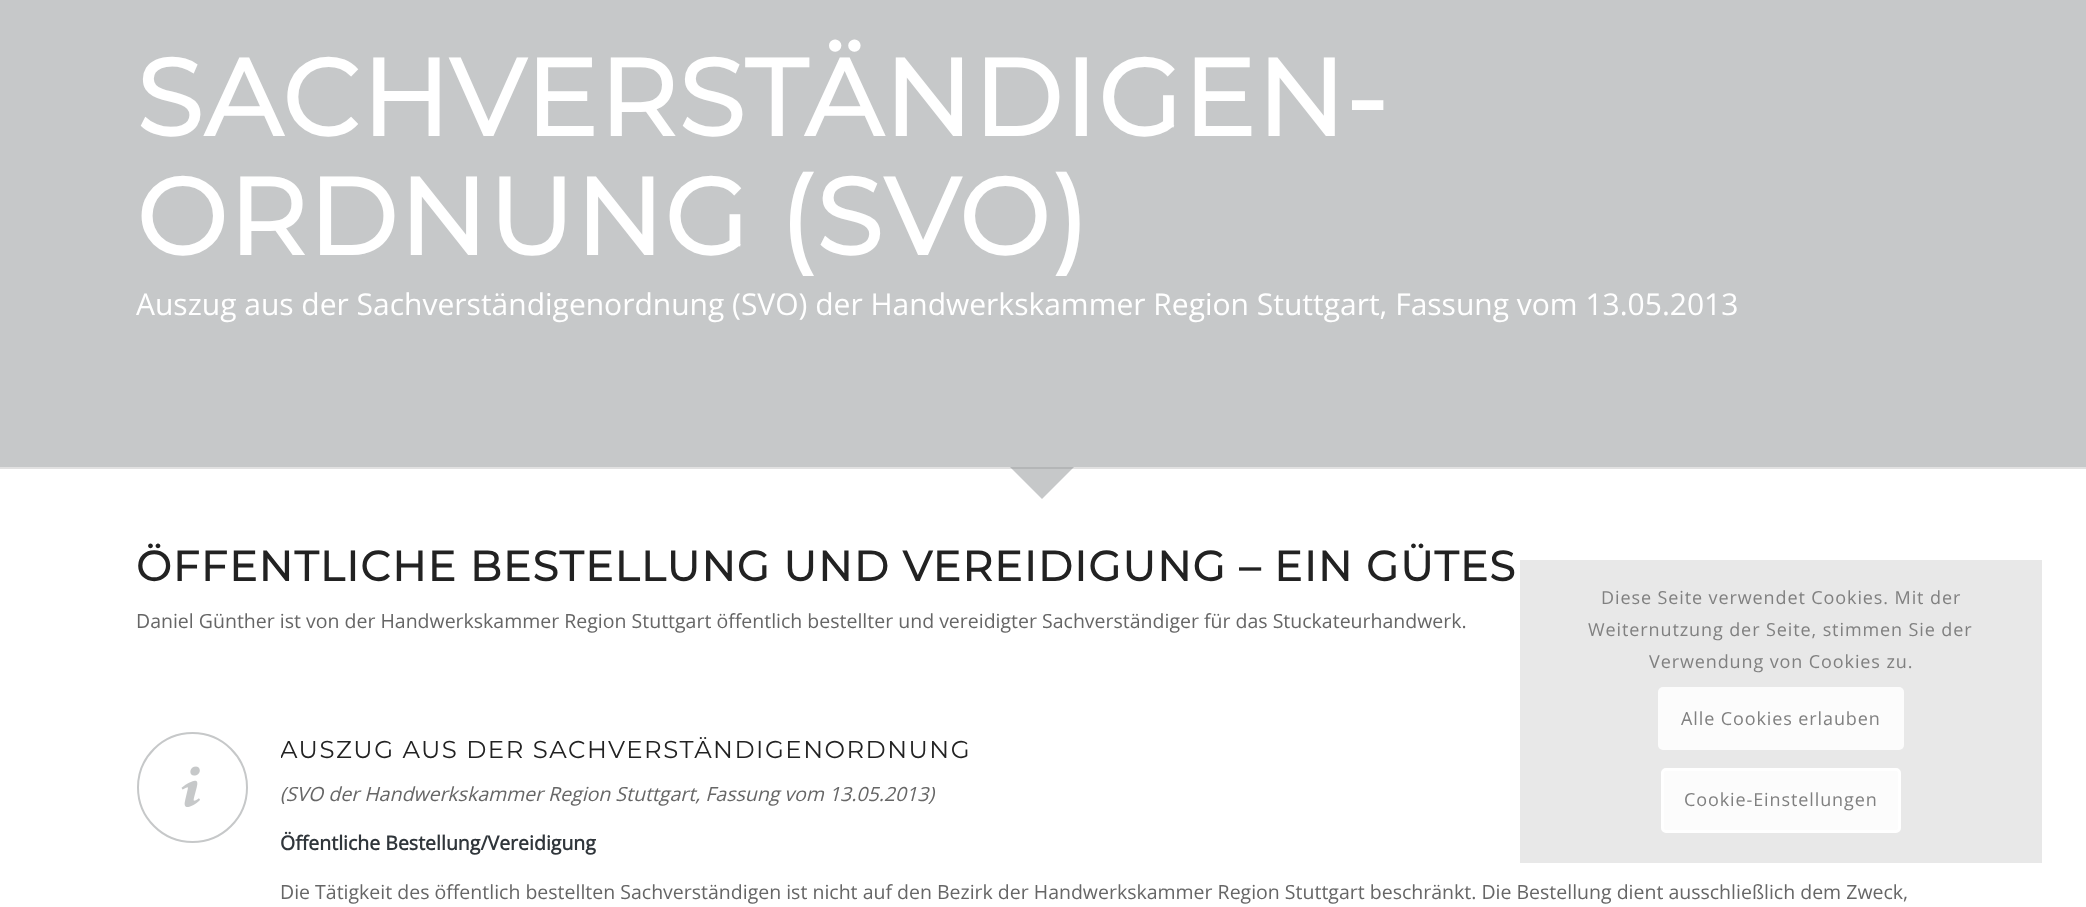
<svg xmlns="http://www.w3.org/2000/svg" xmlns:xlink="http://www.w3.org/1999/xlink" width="2086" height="907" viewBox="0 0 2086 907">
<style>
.cls-1{font:bold 108px Montserrat;letter-spacing:1.5px;fill:#ffffff}
.cls-2{font:30px Open Sans;fill:#ffffff}
.cls-3{font:bold 42px Montserrat;letter-spacing:1.5px;fill:#222222}
.cls-4{font:19.5px Open Sans;fill:#666666}
.cls-5{font:100 24.4px Montserrat;letter-spacing:1.5px;fill:#222222}
.cls-6{font:italic 19.5px Open Sans;fill:#666666}
.cls-7{font:bold 19.5px Open Sans;fill:#30363b}
.cls-8{font:18px Open Sans;letter-spacing:0.9px;fill:#808080}
</style>
<defs>
<clipPath id="clip1"><rect x="1005" y="467" width="75" height="37"/></clipPath>
<clipPath id="clip2"><rect x="281" y="729" width="1671" height="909"/></clipPath>
</defs>
<rect width="100%" height="100%" fill="#ffffff"/>
<rect fill="#c6c8c9" x="0" y="0" width="2086" height="467"/>
<rect fill="#e1e1e1" x="0" y="467" width="2086" height="2"/>
<g clip-path="url(#clip1)">
<path fill="#707577" fill-opacity="0.4" d="M1042 392L1095 446L1042 499L989 446Z"/>
</g>
<circle fill="none" stroke="#c6c8c9" stroke-width="2" cx="192.5" cy="787.5" r="54.5"/>
<image xlink:href="image0.png" x="181" y="766" width="19" height="41"/>
<rect fill="#e8e8e8" x="1520" y="560" width="522" height="303"/>
<rect fill="#fcfcfc" x="1658" y="687" width="246" height="63" rx="5"/>
<rect fill="#fcfcfc" stroke="#ffffff" stroke-width="3" x="1662.5" y="769.5" width="237" height="62" rx="3.5"/>
<text class="cls-1"><tspan x="136" y="136">SACHVERSTÄNDIGEN-</tspan><tspan x="136" y="255">ORDNUNG (SVO)</tspan></text>
<text class="cls-2" x="136" y="315">Auszug aus der Sachverständigenordnung (SVO) der Handwerkskammer Region Stuttgart, Fassung vom 13.05.2013</text>
<text class="cls-3" x="136" y="581">ÖFFENTLICHE BESTELLUNG UND VEREIDIGUNG – EIN GÜTES</text>
<text class="cls-4" x="136" y="628">Daniel Günther ist von der Handwerkskammer Region Stuttgart öffentlich bestellter und vereidigter Sachverständiger für das Stuckateurhandwerk.</text>
<g clip-path="url(#clip2)">
<text class="cls-5" x="280" y="758">AUSZUG AUS DER SACHVERSTÄNDIGENORDNUNG</text>
</g>
<text class="cls-6" x="280" y="801">(SVO der Handwerkskammer Region Stuttgart, Fassung vom 13.05.2013)</text>
<text class="cls-7" x="280" y="850">Öffentliche Bestellung/Vereidigung</text>
<text class="cls-4" x="280" y="899">Die Tätigkeit des öffentlich bestellten Sachverständigen ist nicht auf den Bezirk der Handwerkskammer Region Stuttgart beschränkt. Die Bestellung dient ausschließlich dem Zweck,</text>
<text class="cls-8" x="1601" y="604">Diese Seite verwendet Cookies. Mit der</text>
<text class="cls-8" x="1588" y="636">Weiternutzung der Seite, stimmen Sie der</text>
<text class="cls-8" x="1649" y="668">Verwendung von Cookies zu.</text>
<text class="cls-8" x="1681" y="725">Alle Cookies erlauben</text>
<text class="cls-8" x="1684" y="806">Cookie-Einstellungen</text>
</svg>
